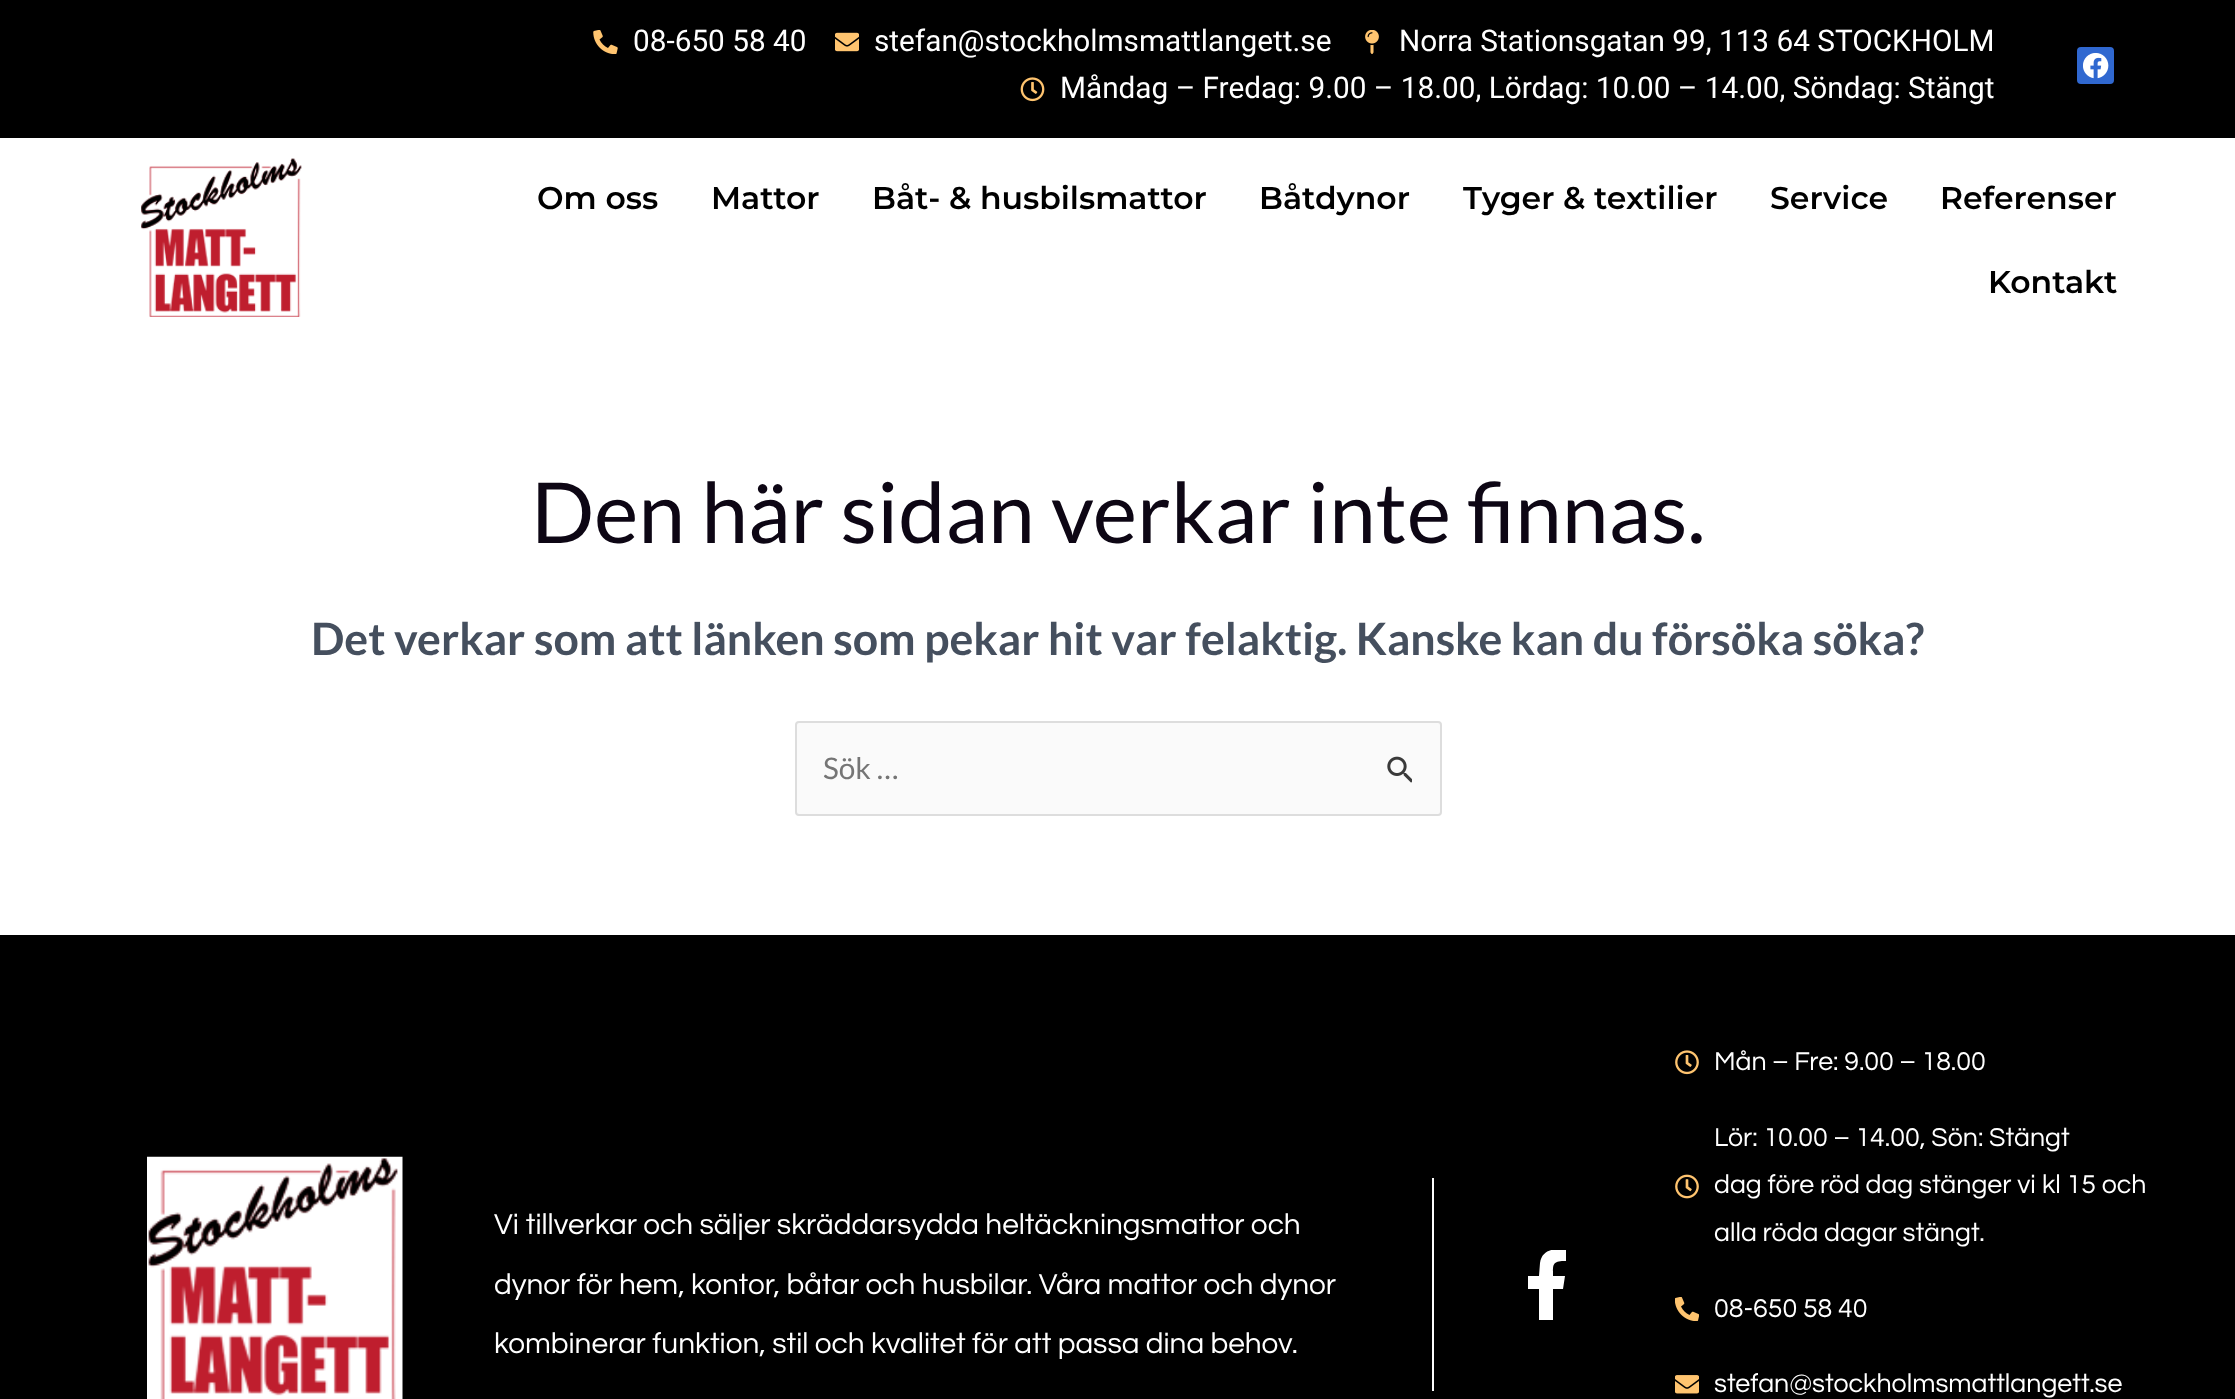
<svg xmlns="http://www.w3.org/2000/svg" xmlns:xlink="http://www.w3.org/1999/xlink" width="2235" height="1399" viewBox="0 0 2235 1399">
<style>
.cls-1{font:29.75px Roboto;fill:#ffffff}
.cls-2{font:600 31.5px Montserrat;fill:#000000}
.cls-3{font:84px Lato;fill:#0d0614}
.cls-4{font:bold 44.6px Lato;fill:#454f5e}
.cls-5{font:29.75px Lato;fill:#757575}
.cls-6{font:29.75px Questrial;fill:#ffffff}
.cls-7{font:26.75px Questrial;fill:#ffffff}
</style>
<defs>
<clipPath id="clip1"><rect x="1512" y="1250" width="70" height="70"/></clipPath>
</defs>
<rect width="100%" height="100%" fill="#ffffff"/>
<rect fill="#000000" x="0" y="0" width="2235" height="138"/>
<image xlink:href="image0.png" x="593" y="30" width="25" height="24"/>
<image xlink:href="image1.png" x="835" y="32" width="24" height="20"/>
<image xlink:href="image2.png" x="1365" y="30" width="14" height="24"/>
<image xlink:href="image3.png" x="1020" y="77" width="25" height="25"/>
<rect fill="#3068d0" x="2077" y="47" width="37" height="37" rx="4"/>
<image xlink:href="image4.png" x="2083" y="53" width="26" height="26"/>
<image xlink:href="image5.png" x="141" y="158" width="161" height="159"/>
<rect fill="#fafafa" stroke="#dddddd" stroke-width="2" x="796" y="722" width="645" height="93" rx="3"/>
<image xlink:href="image6.png" x="1387" y="756" width="25" height="27"/>
<rect fill="#000000" x="0" y="935" width="2235" height="464"/>
<image xlink:href="image7.png" x="147" y="1156" width="256" height="243"/>
<rect fill="#fcfcfc" x="1432" y="1178" width="2" height="213"/>
<g clip-path="url(#clip1)">
<path fill="#ffffff" d="M1563 1289L1565 1276H1553C1553 1264 1552 1261 1566 1261V1250C1555 1248 1542 1249 1540 1263L1539 1276H1528V1289H1539V1320H1553V1289Z"/>
</g>
<image xlink:href="image8.png" x="1675" y="1050" width="24" height="25"/>
<image xlink:href="image9.png" x="1675" y="1174" width="24" height="25"/>
<image xlink:href="image10.png" x="1675" y="1297" width="24" height="24"/>
<image xlink:href="image11.png" x="1675" y="1375" width="24" height="19"/>
<text class="cls-1" x="633" y="51">08-650 58 40</text>
<text class="cls-1" x="874" y="51">stefan@stockholmsmattlangett.se</text>
<text class="cls-1" x="1399" y="51">Norra Stationsgatan 99, 113 64 STOCKHOLM</text>
<text class="cls-1" x="1060" y="98">Måndag – Fredag: 9.00 – 18.00, Lördag: 10.00 – 14.00, Söndag: Stängt</text>
<text class="cls-2" x="537" y="209">Om oss</text>
<text class="cls-2" x="711" y="209">Mattor</text>
<text class="cls-2" x="872" y="209">Båt- &amp; husbilsmattor</text>
<text class="cls-2" x="1259" y="209">Båtdynor</text>
<text class="cls-2" x="1463" y="209">Tyger &amp; textilier</text>
<text class="cls-2" x="1770" y="209">Service</text>
<text class="cls-2" x="1940" y="209">Referenser</text>
<text class="cls-2" x="1988" y="293">Kontakt</text>
<text class="cls-3" x="531" y="543">Den här sidan verkar inte finnas.</text>
<text class="cls-4" x="311" y="655">Det verkar som att länken som pekar hit var felaktig. Kanske kan du försöka söka?</text>
<text class="cls-5" x="823" y="779">Sök …</text>
<text class="cls-6" x="494" y="1234">Vi tillverkar och säljer skräddarsydda heltäckningsmattor och</text>
<text class="cls-6"><tspan x="494" y="1294">dynor för hem, kontor, båtar och husbilar. Våra mattor och dynor</tspan><tspan x="494" y="1353">kombinerar funktion, stil och kvalitet för att passa dina behov.</tspan></text>
<text class="cls-7" x="1714" y="1070">Mån – Fre: 9.00 – 18.00</text>
<text class="cls-7"><tspan x="1714" y="1146">Lör: 10.00 – 14.00, Sön: Stängt</tspan><tspan x="1714" y="1193">dag före röd dag stänger vi kl 15 och</tspan><tspan x="1714" y="1241">alla röda dagar stängt.</tspan></text>
<text class="cls-7" x="1714" y="1317">08-650 58 40</text>
<text class="cls-7" x="1714" y="1392">stefan@stockholmsmattlangett.se</text>
</svg>
